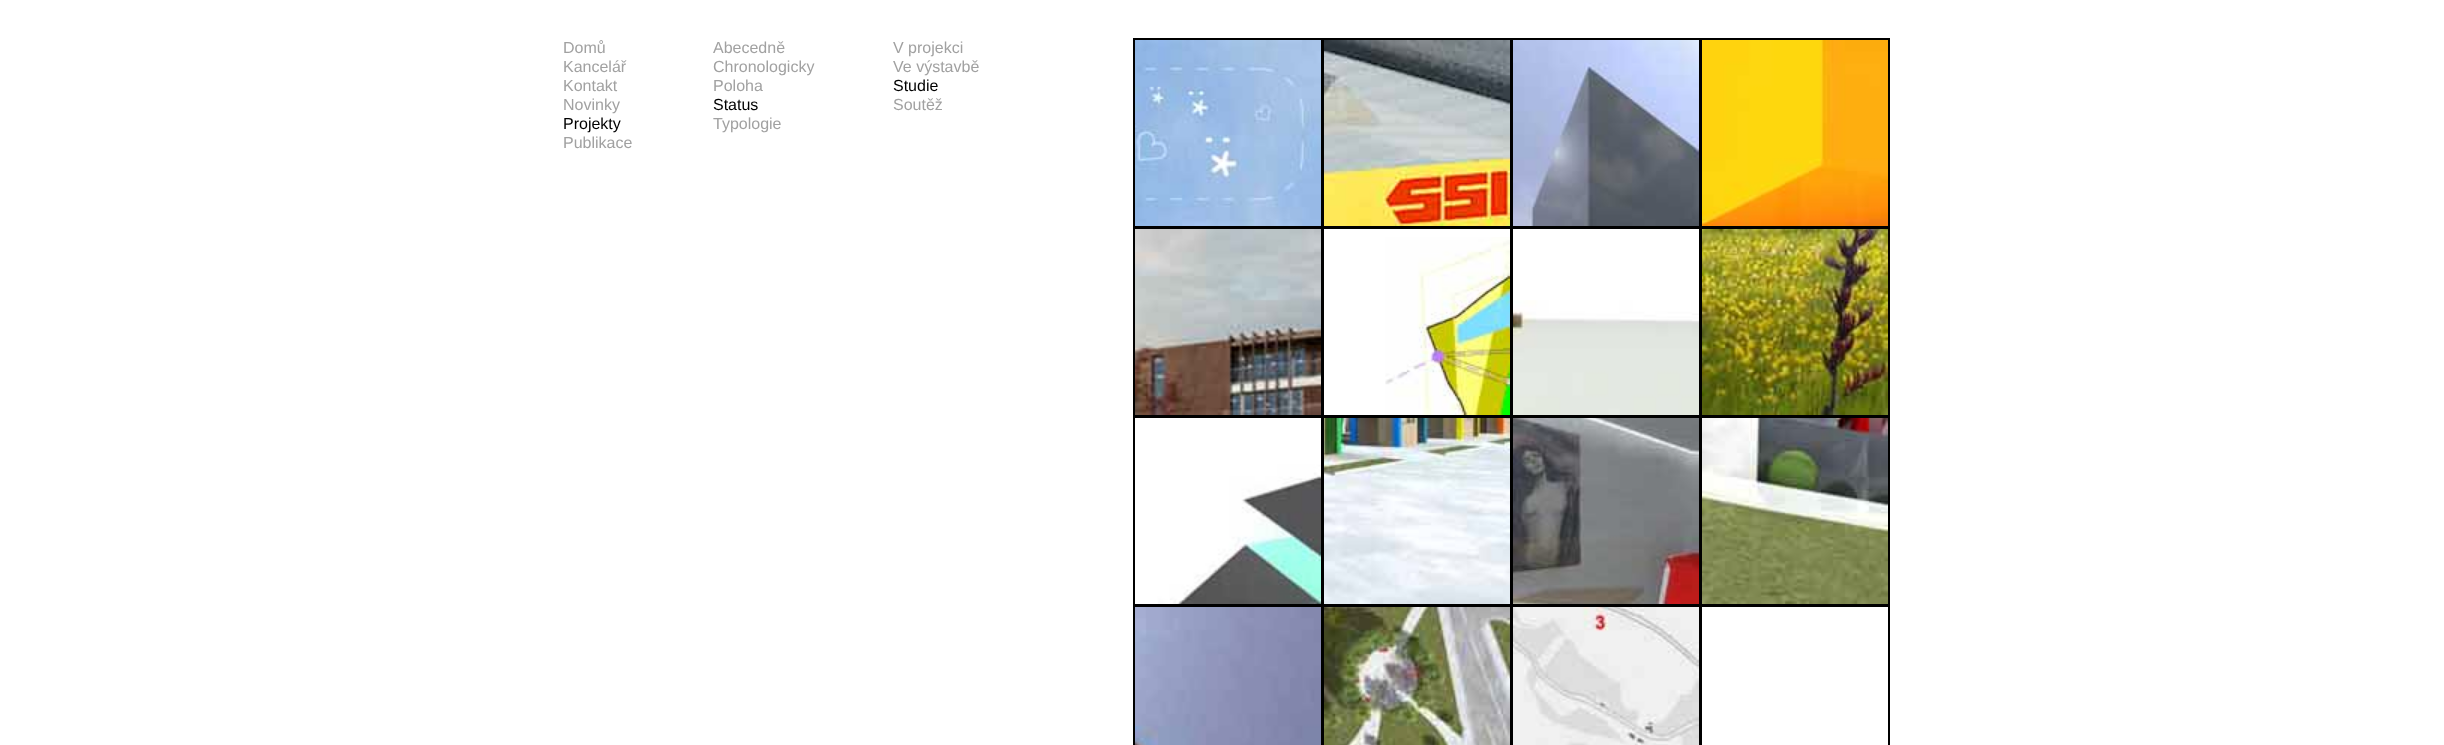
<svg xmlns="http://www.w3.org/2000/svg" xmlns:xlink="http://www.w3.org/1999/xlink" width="2444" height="745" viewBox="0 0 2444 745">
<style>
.cls-1{font:16px Liberation Sans;fill:#a1a1a1}
.cls-2{font:16px Liberation Sans;fill:#000000}
</style>
<defs>
<clipPath id="clip1"><rect x="1134" y="39" width="756" height="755"/></clipPath>
</defs>
<rect width="100%" height="100%" fill="#ffffff"/>
<rect fill="#000000" x="1133" y="38" width="757" height="1"/>
<rect fill="#000000" x="1133" y="38" width="2" height="707"/>
<image xlink:href="image0.png" x="1135" y="40" width="186" height="186"/>
<g clip-path="url(#clip1)">
<rect fill="none" stroke="#000000" stroke-width="2" x="1134" y="39" width="188" height="188"/>
</g>
<image xlink:href="image1.png" x="1324" y="40" width="186" height="186"/>
<g clip-path="url(#clip1)">
<rect fill="none" stroke="#000000" stroke-width="2" x="1323" y="39" width="188" height="188"/>
</g>
<image xlink:href="image2.png" x="1513" y="40" width="186" height="186"/>
<g clip-path="url(#clip1)">
<rect fill="none" stroke="#000000" stroke-width="2" x="1512" y="39" width="188" height="188"/>
</g>
<image xlink:href="image3.png" x="1702" y="40" width="186" height="186"/>
<g clip-path="url(#clip1)">
<rect fill="none" stroke="#000000" stroke-width="2" x="1701" y="39" width="188" height="188"/>
</g>
<image xlink:href="image4.png" x="1135" y="229" width="186" height="186"/>
<g clip-path="url(#clip1)">
<rect fill="none" stroke="#000000" stroke-width="2" x="1134" y="228" width="188" height="188"/>
</g>
<image xlink:href="image5.png" x="1385" y="237" width="125" height="178"/>
<rect fill="none" stroke="#000000" stroke-width="2" x="1323" y="228" width="188" height="188"/>
<image xlink:href="image6.png" x="1513" y="300" width="186" height="115"/>
<rect fill="none" stroke="#000000" stroke-width="2" x="1512" y="228" width="188" height="188"/>
<image xlink:href="image7.png" x="1702" y="229" width="186" height="186"/>
<rect fill="none" stroke="#000000" stroke-width="2" x="1701" y="228" width="188" height="188"/>
<image xlink:href="image8.png" x="1135" y="418" width="186" height="186"/>
<g clip-path="url(#clip1)">
<rect fill="none" stroke="#000000" stroke-width="2" x="1134" y="417" width="188" height="188"/>
</g>
<image xlink:href="image9.png" x="1324" y="418" width="186" height="186"/>
<rect fill="none" stroke="#000000" stroke-width="2" x="1323" y="417" width="188" height="188"/>
<image xlink:href="image10.png" x="1513" y="418" width="186" height="186"/>
<rect fill="none" stroke="#000000" stroke-width="2" x="1512" y="417" width="188" height="188"/>
<image xlink:href="image11.png" x="1702" y="418" width="186" height="186"/>
<rect fill="none" stroke="#000000" stroke-width="2" x="1701" y="417" width="188" height="188"/>
<image xlink:href="image12.png" x="1135" y="607" width="186" height="138"/>
<g clip-path="url(#clip1)">
<rect fill="none" stroke="#000000" stroke-width="2" x="1134" y="606" width="188" height="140"/>
</g>
<image xlink:href="image13.png" x="1324" y="607" width="186" height="138"/>
<rect fill="none" stroke="#000000" stroke-width="2" x="1323" y="606" width="188" height="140"/>
<image xlink:href="image14.png" x="1513" y="607" width="186" height="138"/>
<rect fill="none" stroke="#000000" stroke-width="2" x="1512" y="606" width="188" height="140"/>
<rect fill="none" stroke="#000000" stroke-width="2" x="1701" y="606" width="188" height="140"/>
<text class="cls-1" x="563" y="53">Domů</text>
<text class="cls-2" x="563" y="129">Projekty</text>
<text class="cls-1" x="713" y="53">Abecedně</text>
<text class="cls-2" x="713" y="110">Status</text>
<text class="cls-1"><tspan x="893" y="53">V projekci</tspan><tspan x="893" y="72">Ve výstavbě</tspan></text>
<text class="cls-2" x="893" y="91">Studie</text>
<text class="cls-1" x="893" y="110">Soutěž</text>
<text class="cls-1"><tspan x="713" y="72">Chronologicky</tspan><tspan x="713" y="91">Poloha</tspan></text>
<text class="cls-1" x="713" y="129">Typologie</text>
<text class="cls-1"><tspan x="563" y="72">Kancelář</tspan><tspan x="563" y="91">Kontakt</tspan><tspan x="563" y="110">Novinky</tspan></text>
<text class="cls-1" x="563" y="148">Publikace</text>
</svg>
